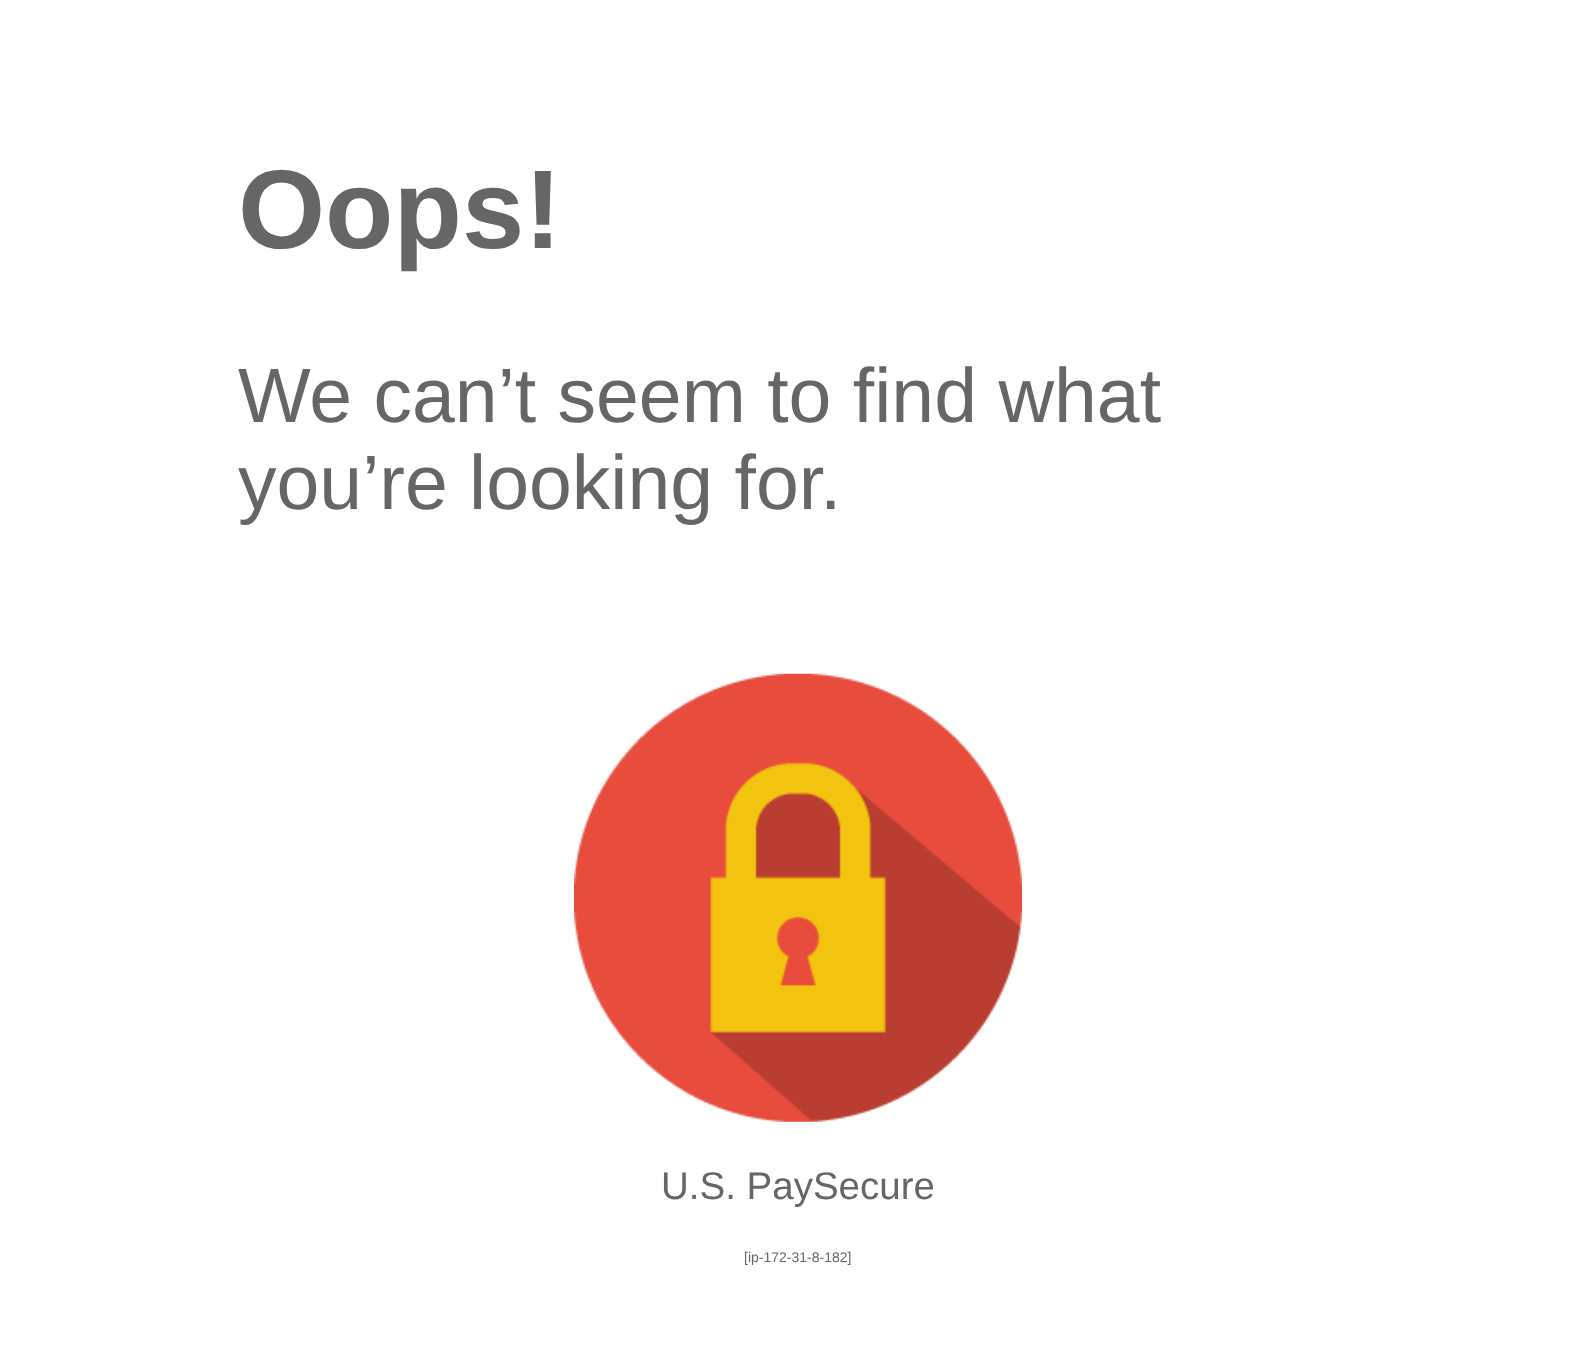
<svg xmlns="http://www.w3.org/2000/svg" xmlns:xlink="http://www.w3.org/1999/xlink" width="1595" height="1365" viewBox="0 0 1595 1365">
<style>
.cls-1{font:bold 112px Liberation Sans;fill:#666666}
.cls-2{font:77px Liberation Sans;fill:#666666}
.cls-3{font:38.5px Liberation Sans;fill:#666666}
.cls-4{font:14px Liberation Sans;fill:#666666}
</style>
<rect width="100%" height="100%" fill="#ffffff"/>
<image xlink:href="image0.png" x="574" y="673" width="448" height="449"/>
<text class="cls-1" x="238" y="248">Oops!</text>
<text class="cls-2"><tspan x="238" y="422">We can’t seem to find what</tspan><tspan x="238" y="509">you’re looking for.</tspan></text>
<text class="cls-3" x="661" y="1199">U.S. PaySecure</text>
<text class="cls-4" x="744" y="1262">[ip-172-31-8-182]</text>
</svg>
